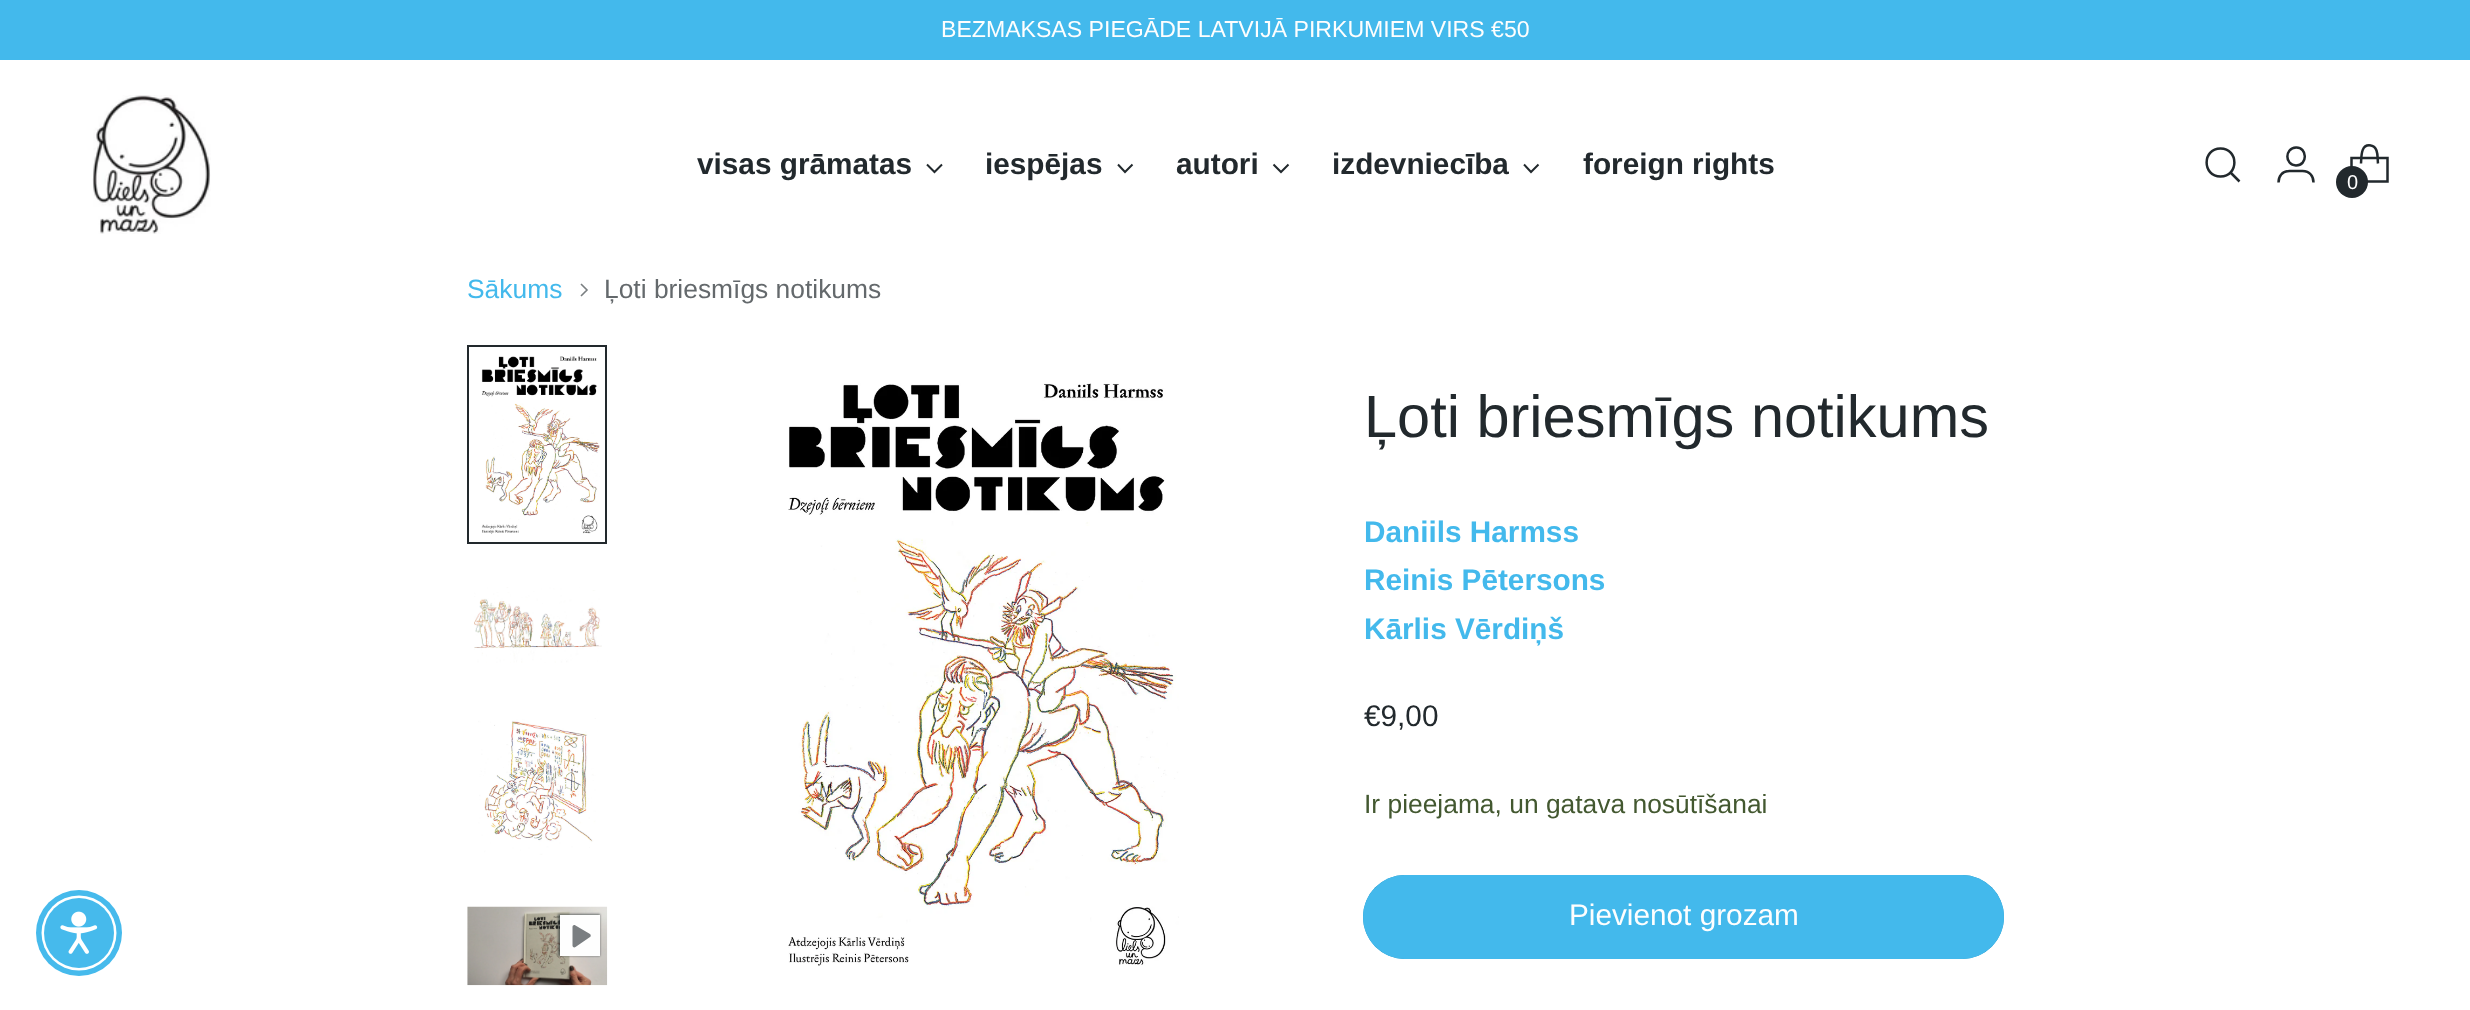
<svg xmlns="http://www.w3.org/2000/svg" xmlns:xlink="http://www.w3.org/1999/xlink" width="2470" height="1010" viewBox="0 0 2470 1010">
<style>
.cls-1{font:23.1px Liberation Sans;fill:#fefefe}
.cls-2{font:bold 29.75px Liberation Sans;fill:#22292d}
.cls-3{font:20px Liberation Sans;fill:#fefefe}
.cls-4{font:26.4px Liberation Sans;fill:#43b9ec}
.cls-5{font:26.4px Liberation Sans;fill:#64696c}
.cls-6{font:59.5px Liberation Sans;fill:#22292d}
.cls-7{font:bold 29.75px Liberation Sans;fill:#43b9ec}
.cls-8{font:29.75px Liberation Sans;fill:#22292d}
.cls-9{font:26.4px Liberation Sans;fill:#435830}
.cls-10{font:29.75px Liberation Sans;fill:#fefefe}
</style>
<rect width="100%" height="100%" fill="#ffffff"/>
<circle fill="#46baec" cx="79" cy="933" r="43"/>
<circle fill="#ffffff" cx="79" cy="933" r="37.5"/>
<circle fill="#46baec" cx="79" cy="933" r="35"/>
<image xlink:href="image0.png" x="60" y="911" width="38" height="43"/>
<rect fill="#43b9ec" x="0" y="0" width="2470" height="60"/>
<image xlink:href="image1.png" x="92" y="95" width="119" height="139"/>
<path fill="none" stroke="#22292d" stroke-width="2" d="M927 164.5L934.5 172L942 164.5"/>
<path fill="none" stroke="#22292d" stroke-width="2" d="M1118 164.5L1125 172L1132.5 164.5"/>
<path fill="none" stroke="#22292d" stroke-width="2" d="M1273.5 164.5L1281 172L1288.5 164.5"/>
<path fill="none" stroke="#22292d" stroke-width="2" d="M1524 164.5L1531 172L1538.5 164.5"/>
<path fill="none" stroke="#22292d" stroke-width="2.5" stroke-linecap="round" d="M2220.5 176.5C2239 176.5 2239 148.5 2220.5 148.5C2202 148.5 2202 176.5 2220.5 176.5Z"/>
<path fill="none" stroke="#22292d" stroke-width="2.5" d="M2230.5 172.5L2239.5 181.5"/>
<path fill="none" stroke="#22292d" stroke-width="2.5" d="M2296 165.5C2308 165.5 2307.5 147 2296 147.5C2284.5 148 2284.5 165 2296 165.5ZM2278.5 182.5C2278.5 176.5 2282 171 2289.5 171H2302.5C2310 171 2313.5 176.5 2313.5 182.5"/>
<path fill="none" stroke="#22292d" stroke-width="2.5" stroke-linejoin="bevel" d="M2378 163.5C2377.5 159 2378 154.5 2376.5 150.5C2375.5 148 2374 146 2371 145.5C2360.5 143.5 2361.5 157 2361 163.5"/>
<path fill="none" stroke="#22292d" stroke-width="2.5" d="M2387.5 181.5V158H2351.5V181.5Z"/>
<circle fill="#22292d" cx="2352" cy="182" r="16"/>
<path fill="none" stroke="#7a7f81" stroke-width="1.6" d="M581 296L587 290L581 284"/>
<image xlink:href="image2.png" x="481" y="356" width="119" height="178"/>
<rect fill="none" stroke="#22292d" stroke-width="2" x="468" y="346" width="138" height="197"/>
<image xlink:href="image3.png" x="474" y="587" width="128" height="76"/>
<image xlink:href="image4.png" x="478" y="718" width="118" height="137"/>
<image xlink:href="image5.png" x="467" y="906" width="141" height="80"/>
<rect fill="#22292d" fill-opacity="0.6" filter="blur(1px)" x="558" y="914" width="42" height="42"/>
<rect fill="#fefefe" x="560" y="915" width="40" height="41"/>
<path fill="#7a7e81" fill-rule="evenodd" d="M575.5 925.5C574 924.5 572.5 925.5 572.5 927V945.5C572.5 947 574 948 575.5 947L590 937C591 936.5 591 935 590 934Z"/>
<image xlink:href="image6.png" x="788" y="383" width="391" height="583"/>
<rect fill="#1285b7" x="1363" y="875" width="641" height="84" rx="42"/>
<path fill="#43b9ec" d="M1405 875C1382 875 1363 894 1363 917C1363 940 1382 959 1405 959H1962C1985 959 2004 940 2004 917C2004 894 1985 875 1962 875Z"/>
<text class="cls-1" x="941" y="37">BEZMAKSAS PIEGĀDE LATVIJĀ PIRKUMIEM VIRS €50</text>
<text class="cls-2" x="697" y="174">visas grāmatas</text>
<text class="cls-2" x="985" y="174">iespējas</text>
<text class="cls-2" x="1176" y="174">autori</text>
<text class="cls-2" x="1332" y="174">izdevniecība</text>
<text class="cls-2" x="1583" y="174">foreign rights</text>
<text class="cls-3" x="2347" y="189">0</text>
<text class="cls-4" x="467" y="298">Sākums</text>
<text class="cls-5" x="604" y="298">Ļoti briesmīgs notikums</text>
<text class="cls-6" x="1364" y="437">Ļoti briesmīgs notikums</text>
<text class="cls-7"><tspan x="1364" y="542">Daniils Harmss</tspan><tspan x="1364" y="590">Reinis Pētersons</tspan><tspan x="1364" y="639">Kārlis Vērdiņš</tspan></text>
<text class="cls-8" x="1364" y="726">€9,00</text>
<text class="cls-9" x="1364" y="813">Ir pieejama, un gatava nosūtīšanai</text>
<text class="cls-10" x="1569" y="925">Pievienot grozam</text>
</svg>
